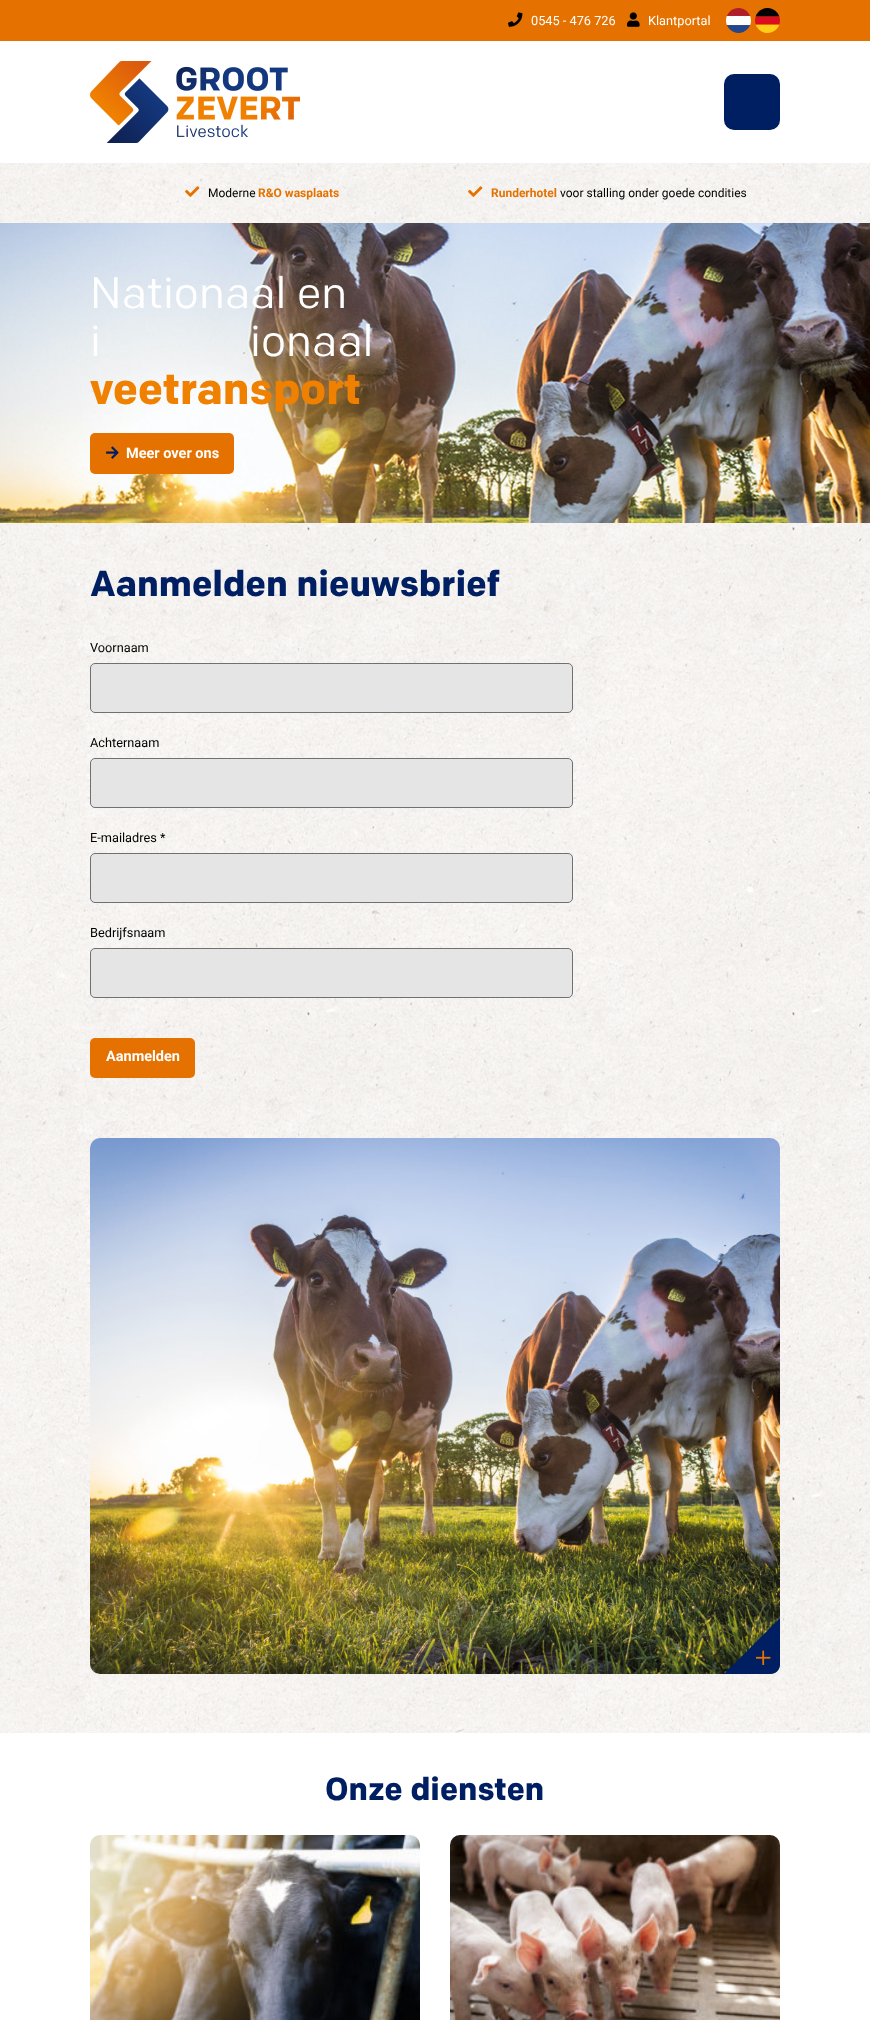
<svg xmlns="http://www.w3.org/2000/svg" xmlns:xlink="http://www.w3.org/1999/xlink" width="870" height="2020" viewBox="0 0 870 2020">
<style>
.cls-1{font:12.75px Roboto;fill:#ffffff}
.cls-2{font:12px Roboto;fill:#000000}
.cls-3{font:bold 12px Roboto;fill:#e57200}
.cls-4{font:44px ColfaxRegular;fill:#ffffff}
.cls-5{font:bold 44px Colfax;fill:#f08100}
.cls-6{font:bold 14.5px Roboto;fill:#ffffff}
.cls-7{font:bold 36px Colfax;fill:#001e62}
.cls-8{font:12.75px Roboto;fill:#000000}
.cls-9{font:bold 32px Colfax;fill:#001e62}
</style>
<rect width="100%" height="100%" fill="#ffffff"/>
<image xlink:href="image0.png" x="0" y="163" width="870" height="1570"/>
<rect fill="#e57200" x="0" y="0" width="870" height="41"/>
<image xlink:href="image1.png" x="508" y="12" width="15" height="15"/>
<image xlink:href="image2.png" x="627" y="12" width="13" height="15"/>
<image xlink:href="image3.png" x="726" y="8" width="25" height="25"/>
<image xlink:href="image4.png" x="755" y="8" width="25" height="25"/>
<image xlink:href="image5.png" x="90" y="61" width="210" height="82"/>
<rect fill="#001e62" x="724" y="74" width="56" height="56" rx="10"/>
<image xlink:href="image6.png" x="185" y="186" width="15" height="11"/>
<image xlink:href="image7.png" x="468" y="186" width="15" height="11"/>
<image xlink:href="image8.png" x="0" y="223" width="870" height="300"/>
<rect fill="#e57200" x="90" y="433" width="144" height="41" rx="5"/>
<image xlink:href="image9.png" x="106" y="446" width="13" height="13"/>
<rect fill="#e5e5e5" stroke="#707070" x="90.5" y="663.5" width="482" height="49" rx="4.5"/>
<rect fill="#e5e5e5" stroke="#707070" x="90.5" y="758.5" width="482" height="49" rx="4.5"/>
<rect fill="#e5e5e5" stroke="#707070" x="90.5" y="853.5" width="482" height="49" rx="4.5"/>
<rect fill="#e5e5e5" stroke="#707070" x="90.5" y="948.5" width="482" height="49" rx="4.5"/>
<rect fill="#e57200" x="90" y="1038" width="105" height="40" rx="5"/>
<image xlink:href="image10.png" x="90" y="1138" width="690" height="536"/>
<path fill="#001e62" d="M780 1618L724 1674H770C776 1674 780 1670 780 1664Z"/>
<image xlink:href="image11.png" x="756" y="1650" width="15" height="15"/>
<image xlink:href="image12.png" x="90" y="1835" width="330" height="185"/>
<image xlink:href="image13.png" x="450" y="1835" width="330" height="185"/>
<text class="cls-1" x="531" y="25">0545 - 476 726</text>
<text class="cls-1" x="648" y="25">Klantportal</text>
<text class="cls-2" x="208" y="197">Moderne</text>
<text class="cls-3" x="258" y="197">R&amp;O wasplaats</text>
<text class="cls-3" x="491" y="197">Runderhotel</text>
<text class="cls-2" x="560" y="197">voor stalling onder goede condities</text>
<text class="cls-4"><tspan x="90" y="308">Nationaal en</tspan><tspan x="90" y="356">i</tspan></text>
<text class="cls-4" x="250" y="356">ionaal</text>
<text class="cls-5" x="90" y="404">veetransport</text>
<text class="cls-6" x="126" y="458">Meer over ons</text>
<text class="cls-7" x="90" y="596">Aanmelden nieuwsbrief</text>
<text class="cls-8" x="90" y="652">Voornaam</text>
<text class="cls-8" x="90" y="747">Achternaam</text>
<text class="cls-8" x="90" y="842">E-mailadres *</text>
<text class="cls-8" x="90" y="937">Bedrijfsnaam</text>
<text class="cls-6" x="106" y="1061">Aanmelden</text>
<text class="cls-9" x="325" y="1800">Onze diensten</text>
</svg>
